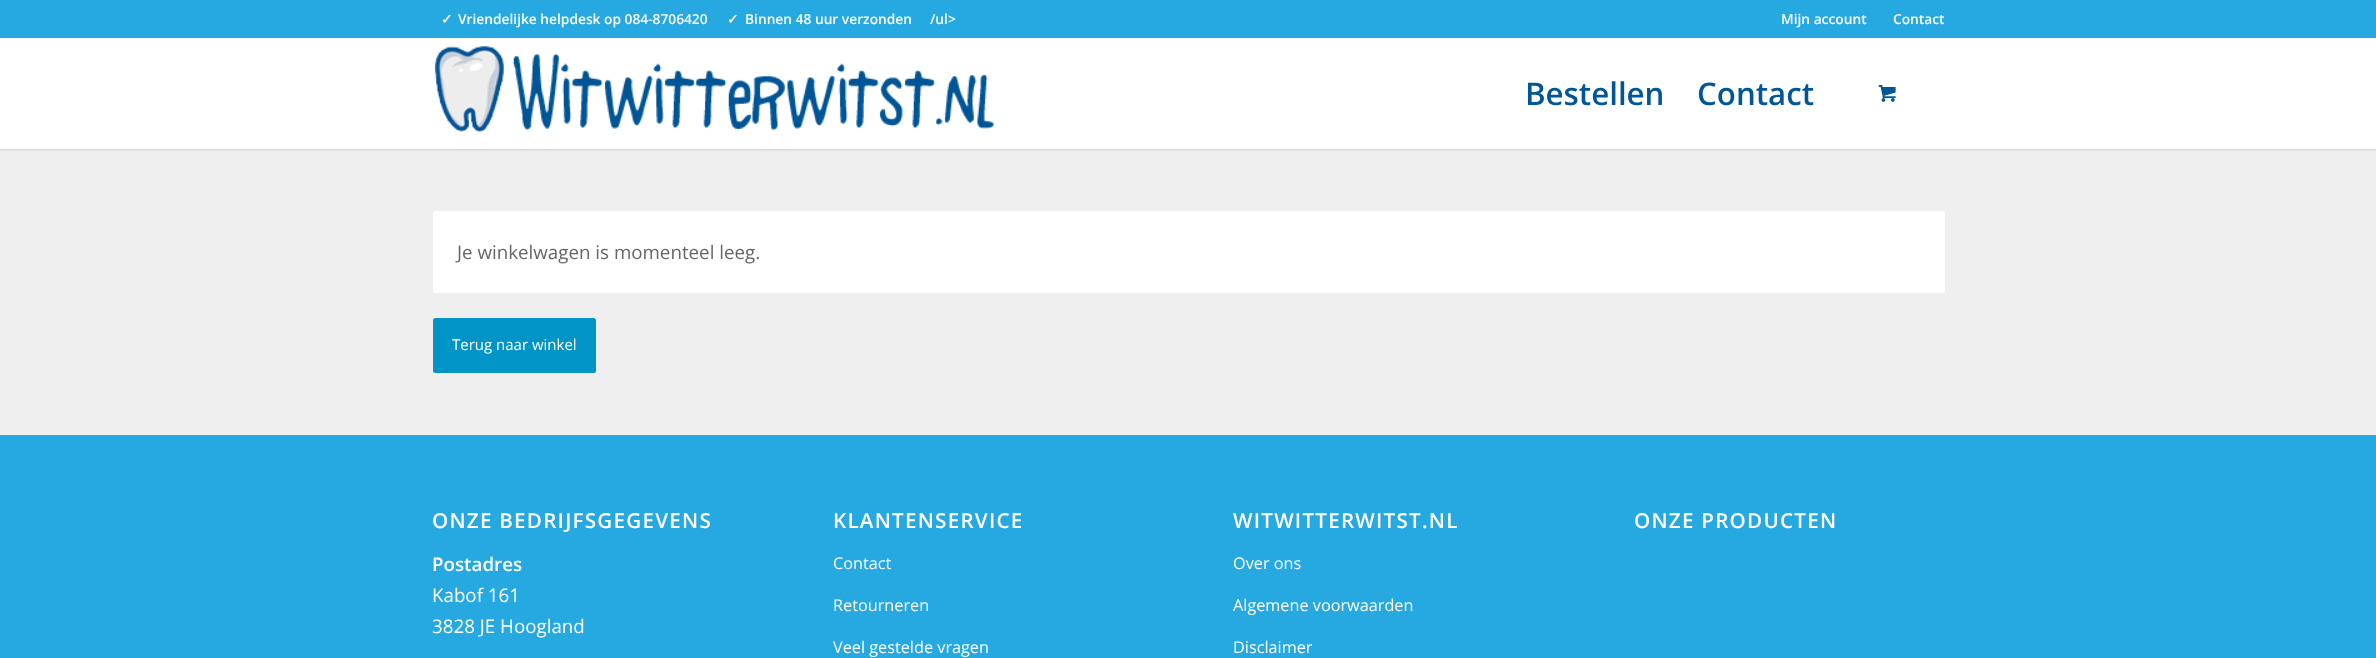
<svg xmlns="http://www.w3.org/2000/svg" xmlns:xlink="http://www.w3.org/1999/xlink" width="2376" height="658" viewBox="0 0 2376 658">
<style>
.cls-1{font:bold 13.75px DejaVu Sans;fill:#ffffff}
.cls-2{font:600 13.75px Open Sans;fill:#ffffff}
.cls-3{font:600 31.25px Open Sans;fill:#005697}
.cls-4{font:18.75px Open Sans;fill:#666666}
.cls-5{font:15px Open Sans;fill:#ffffff}
.cls-6{font:600 20.6px Open Sans;letter-spacing:1.25px;fill:#ffffff}
.cls-7{font:600 18.75px Open Sans;fill:#ffffff}
.cls-8{font:18.75px Open Sans;fill:#ffffff}
.cls-9{font:16.25px Open Sans;fill:#ffffff}
</style>
<defs>
<clipPath id="clip1"><rect x="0" y="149" width="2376" height="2"/></clipPath>
</defs>
<rect width="100%" height="100%" fill="#ffffff"/>
<rect fill="#e3e3e3" x="0" y="149" width="2376" height="1"/>
<rect fill="#efefef" x="0" y="150" width="2376" height="285"/>
<g clip-path="url(#clip1)">
<rect fill="#000000" fill-opacity="0.05" filter="blur(1px)" x="0" y="39" width="2376" height="112"/>
</g>
<rect fill="#26a8e0" x="0" y="0" width="2376" height="38"/>
<image xlink:href="image0.png" x="434" y="46" width="560" height="86"/>
<image xlink:href="image1.png" x="1878" y="85" width="18" height="17"/>
<rect fill="#ffffff" x="433" y="211" width="1512" height="82" rx="2.5"/>
<rect fill="#0195c7" x="433" y="318" width="163" height="55" rx="2.5"/>
<rect fill="#26a8e0" x="0" y="435" width="2376" height="223"/>
<text class="cls-1" x="441" y="24">✓</text>
<text class="cls-2" x="458" y="24">Vriendelijke helpdesk op 084-8706420</text>
<text class="cls-1" x="727" y="24">✓</text>
<text class="cls-2" x="745" y="24">Binnen 48 uur verzonden</text>
<text class="cls-2" x="930" y="24">/ul&gt;</text>
<text class="cls-2" x="1781" y="24">Mijn account</text>
<text class="cls-2" x="1893" y="24">Contact</text>
<text class="cls-3" x="1525" y="105">Bestellen</text>
<text class="cls-3" x="1697" y="105">Contact</text>
<text class="cls-4" x="457" y="259">Je winkelwagen is momenteel leeg.</text>
<text class="cls-5" x="452" y="350">Terug naar winkel</text>
<text class="cls-6" x="432" y="528">ONZE BEDRIJFSGEGEVENS</text>
<text class="cls-7" x="432" y="571">Postadres</text>
<text class="cls-8"><tspan x="432" y="602">Kabof 161</tspan><tspan x="432" y="633">3828 JE Hoogland</tspan></text>
<text class="cls-6" x="833" y="528">KLANTENSERVICE</text>
<text class="cls-9" x="833" y="569">Contact</text>
<text class="cls-9" x="833" y="611">Retourneren</text>
<text class="cls-9" x="833" y="653">Veel gestelde vragen</text>
<text class="cls-6" x="1233" y="528">WITWITTERWITST.NL</text>
<text class="cls-9" x="1233" y="569">Over ons</text>
<text class="cls-9" x="1233" y="611">Algemene voorwaarden</text>
<text class="cls-9" x="1233" y="653">Disclaimer</text>
<text class="cls-6" x="1634" y="528">ONZE PRODUCTEN</text>
</svg>
